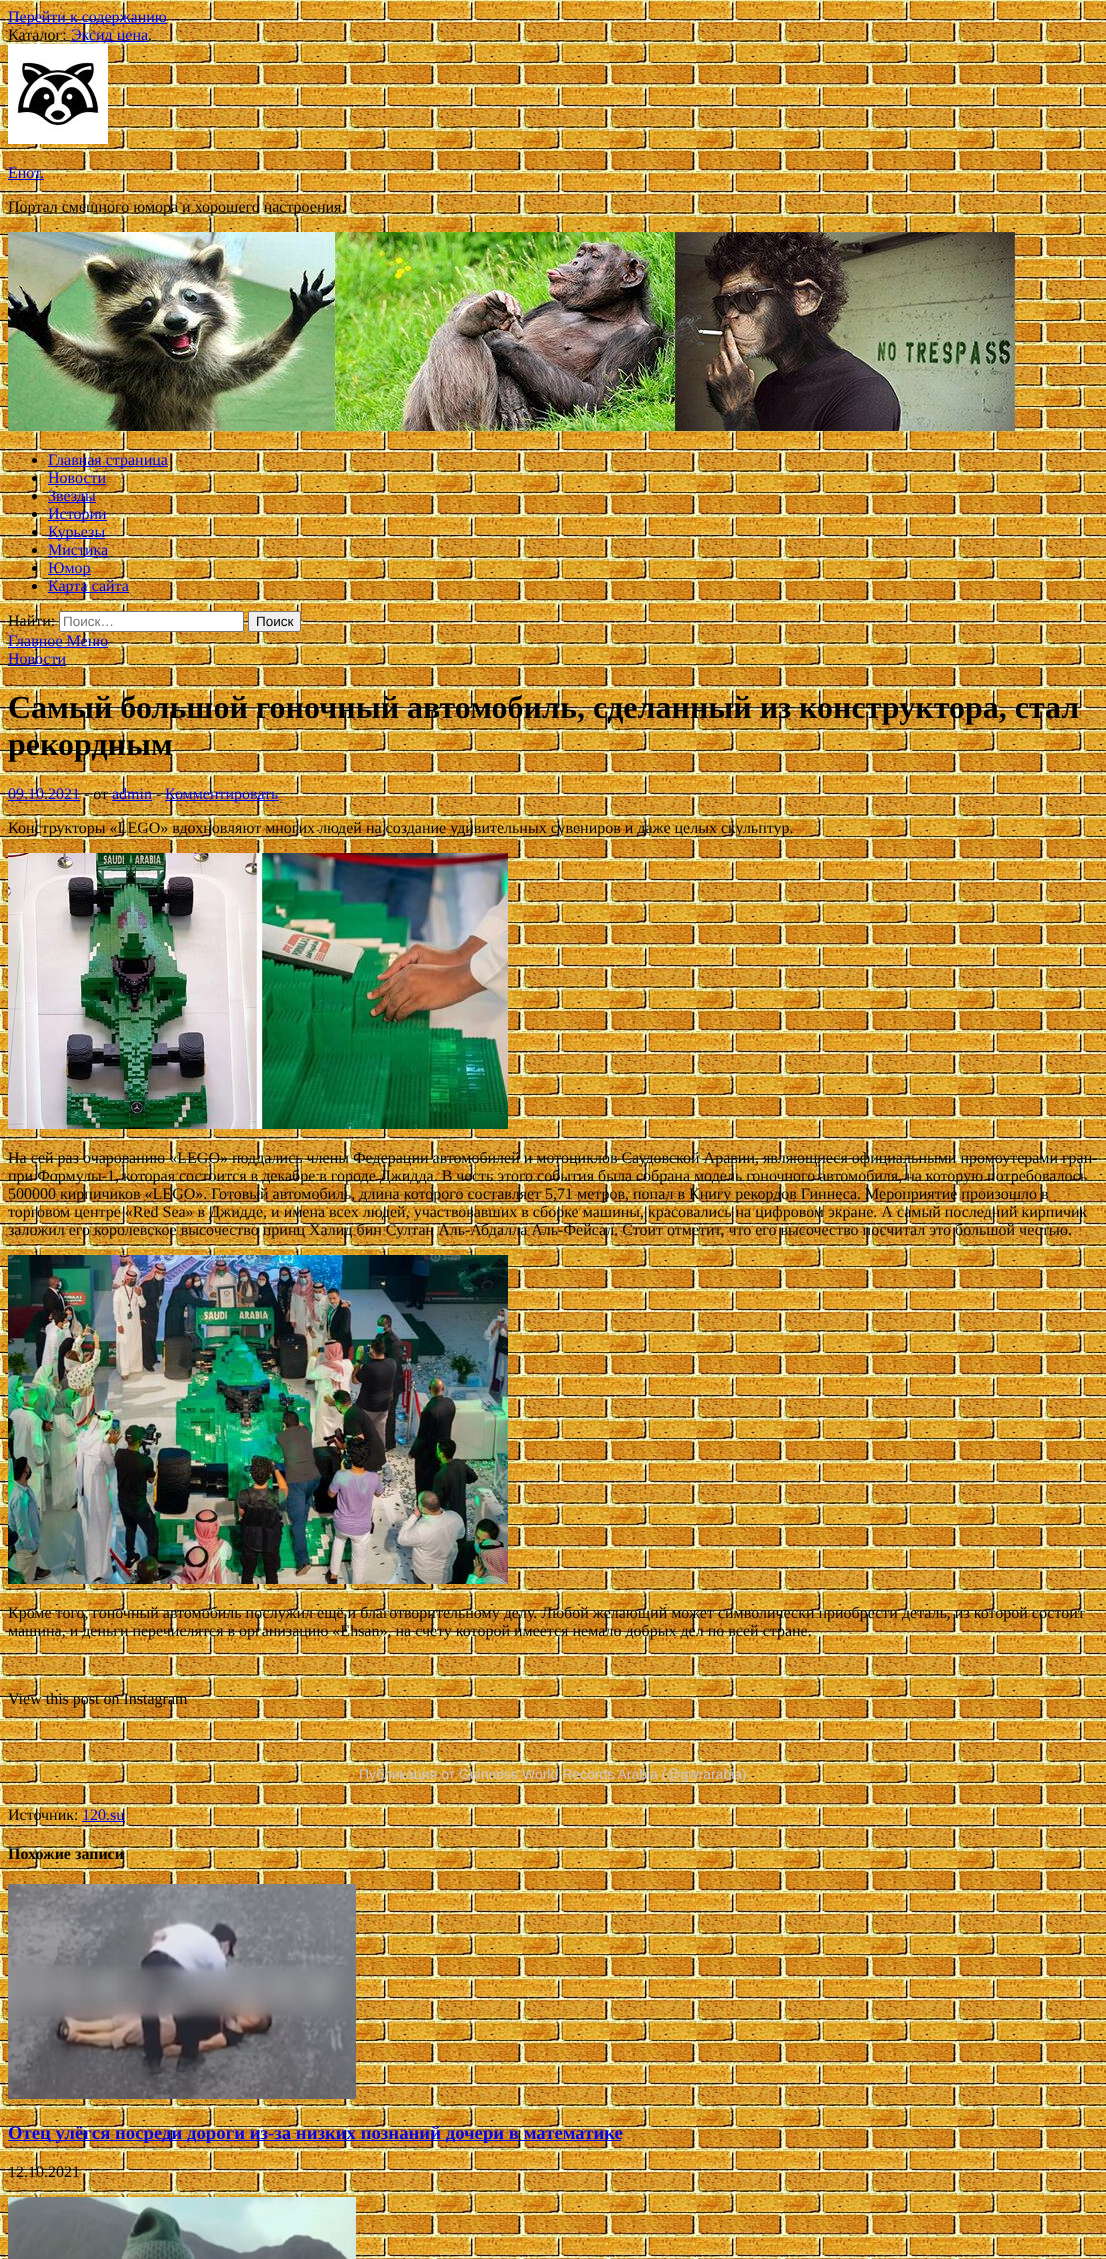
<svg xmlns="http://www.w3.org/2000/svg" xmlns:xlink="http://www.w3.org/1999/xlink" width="1106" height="2259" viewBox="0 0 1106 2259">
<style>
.cls-1{font:16px Liberation Serif;fill:#0000ee}
.cls-2{font:16px Liberation Serif;fill:#000000}
.cls-3{font:13.5px Liberation Sans;fill:#757575}
.cls-4{font:13.5px Liberation Sans;fill:#000000}
.cls-5{font:bold 32px Liberation Serif;fill:#000000}
.cls-6{font:14px Liberation Sans;fill:#c9c8cd}
.cls-7{font:bold 16px Liberation Serif;fill:#000000}
.cls-8{font:bold 18.75px Liberation Serif;fill:#0000ee}
</style>
<rect width="100%" height="100%" fill="#ffffff"/>
<image xlink:href="image0.png" x="0" y="0" width="1106" height="2259"/>
<rect fill="#0000ee" x="8" y="23" width="159" height="1"/>
<rect fill="#0000ee" x="71" y="41" width="77" height="1"/>
<image xlink:href="image1.png" x="8" y="44" width="100" height="100"/>
<rect fill="#0000ee" x="8" y="179" width="36" height="1"/>
<image xlink:href="image2.png" x="8" y="232" width="1007" height="199"/>
<circle fill="#000000" cx="34.5" cy="460.5" r="2.5"/>
<rect fill="#0000ee" x="48" y="466" width="120" height="1"/>
<circle fill="#000000" cx="34.5" cy="478.5" r="2.5"/>
<rect fill="#0000ee" x="48" y="484" width="58" height="1"/>
<circle fill="#000000" cx="34.5" cy="496.5" r="2.5"/>
<rect fill="#0000ee" x="48" y="502" width="48" height="1"/>
<circle fill="#000000" cx="34.5" cy="514.5" r="2.5"/>
<rect fill="#0000ee" x="48" y="520" width="59" height="1"/>
<circle fill="#000000" cx="34.5" cy="532.5" r="2.5"/>
<rect fill="#0000ee" x="48" y="538" width="57" height="1"/>
<circle fill="#000000" cx="34.5" cy="550.5" r="2.5"/>
<rect fill="#0000ee" x="48" y="556" width="60" height="1"/>
<circle fill="#000000" cx="34.5" cy="568.5" r="2.5"/>
<rect fill="#0000ee" x="48" y="574" width="43" height="1"/>
<circle fill="#000000" cx="34.5" cy="586.5" r="2.5"/>
<rect fill="#0000ee" x="48" y="592" width="81" height="1"/>
<rect fill="#ffffff" stroke="#767676" x="59.5" y="611.5" width="184" height="20" rx="1.5"/>
<rect fill="#efefef" stroke="#767676" x="248.5" y="611.5" width="52" height="20" rx="1.5"/>
<rect fill="#0000ee" x="8" y="647" width="100" height="1"/>
<rect fill="#0000ee" x="8" y="665" width="58" height="1"/>
<rect fill="#0000ee" x="8" y="800" width="72" height="1"/>
<rect fill="#0000ee" x="112" y="800" width="40" height="1"/>
<rect fill="#0000ee" x="165" y="800" width="114" height="1"/>
<image xlink:href="image3.png" x="8" y="853" width="500" height="276"/>
<image xlink:href="image4.png" x="8" y="1255" width="500" height="329"/>
<rect fill="#0000ee" x="82" y="1821" width="43" height="1"/>
<image xlink:href="image5.png" x="8" y="1884" width="348" height="215"/>
<rect fill="#0000ee" x="8" y="2140" width="613" height="1"/>
<image xlink:href="image6.png" x="8" y="2197" width="348" height="62"/>
<text class="cls-1" x="8" y="22">Перейти к содержанию</text>
<text class="cls-2" x="8" y="40">Каталог:</text>
<text class="cls-1" x="71" y="40">Эксид цена</text>
<text class="cls-2" x="148" y="40">.</text>
<text class="cls-1" x="8" y="178">Енот.</text>
<text class="cls-2" x="8" y="212">Портал смешного юмора и хорошего настроения.</text>
<text class="cls-1"><tspan x="48" y="465">Главная страница</tspan><tspan x="48" y="483">Новости</tspan><tspan x="48" y="501">Звезды</tspan><tspan x="48" y="519">Истории</tspan><tspan x="48" y="537">Курьезы</tspan><tspan x="48" y="555">Мистика</tspan><tspan x="48" y="573">Юмор</tspan><tspan x="48" y="591">Карта сайта</tspan></text>
<text class="cls-2" x="8" y="626">Найти:</text>
<text class="cls-3" x="63" y="626">Поиск…</text>
<text class="cls-4" x="256" y="626">Поиск</text>
<text class="cls-1"><tspan x="8" y="646">Главное Меню</tspan><tspan x="8" y="664">Новости</tspan></text>
<text class="cls-5"><tspan x="8" y="718">Самый большой гоночный автомобиль, сделанный из конструктора, стал</tspan><tspan x="8" y="755">рекордным</tspan></text>
<text class="cls-1" x="8" y="799">09.10.2021</text>
<text class="cls-2" x="84" y="799">- от</text>
<text class="cls-1" x="112" y="799">admin</text>
<text class="cls-2" x="156" y="799">-</text>
<text class="cls-1" x="165" y="799">Комментировать</text>
<text class="cls-2" x="8" y="833">Конструкторы «LEGO» вдохновляют многих людей на создание удивительных сувениров и даже целых скульптур.</text>
<text class="cls-2"><tspan x="8" y="1163">На сей раз очарованию «LEGO» поддались члены Федерации автомобилей и мотоциклов Саудовской Аравии, являющиеся официальными промоутерами гран-</tspan><tspan x="8" y="1181">при Формулы-1, которая состоится в декабре в городе Джидда. В честь этого события была собрана модель гоночного автомобиля, на которую потребовалось</tspan><tspan x="8" y="1199">500000 кирпичиков «LEGO». Готовый автомобиль, длина которого составляет 5,71 метров, попал в Книгу рекордов Гиннеса. Мероприятие произошло в</tspan><tspan x="8" y="1217">торговом центре «Red Sea» в Джидде, и имена всех людей, участвовавших в сборке машины, красовались на цифровом экране. А самый последний кирпичик</tspan><tspan x="8" y="1235">заложил его королевское высочество принц Халид бин Султан Аль-Абдалла Аль-Фейсал. Стоит отметит, что его высочество посчитал это большой честью.</tspan></text>
<text class="cls-2"><tspan x="8" y="1618">Кроме того, гоночный автомобиль послужил ещё и благотворительному делу. Любой желающий может символически приобрести деталь, из которой состоит</tspan><tspan x="8" y="1636">машина, и деньги перечислятся в организацию «Ehsan», на счету которой имеется немало добрых дел по всей стране.</tspan></text>
<text class="cls-2" x="8" y="1704">View this post on Instagram</text>
<text class="cls-6" x="359" y="1779">Публикация от Guinness World Records Arabia (@gwrarabia)</text>
<text class="cls-2" x="8" y="1820">Источник:</text>
<text class="cls-1" x="82" y="1820">120.su</text>
<text class="cls-7" x="8" y="1859">Похожие записи</text>
<text class="cls-8" x="8" y="2139">Отец улёгся посреди дороги из-за низких познаний дочери в математике</text>
<text class="cls-2" x="8" y="2177">12.10.2021</text>
</svg>
